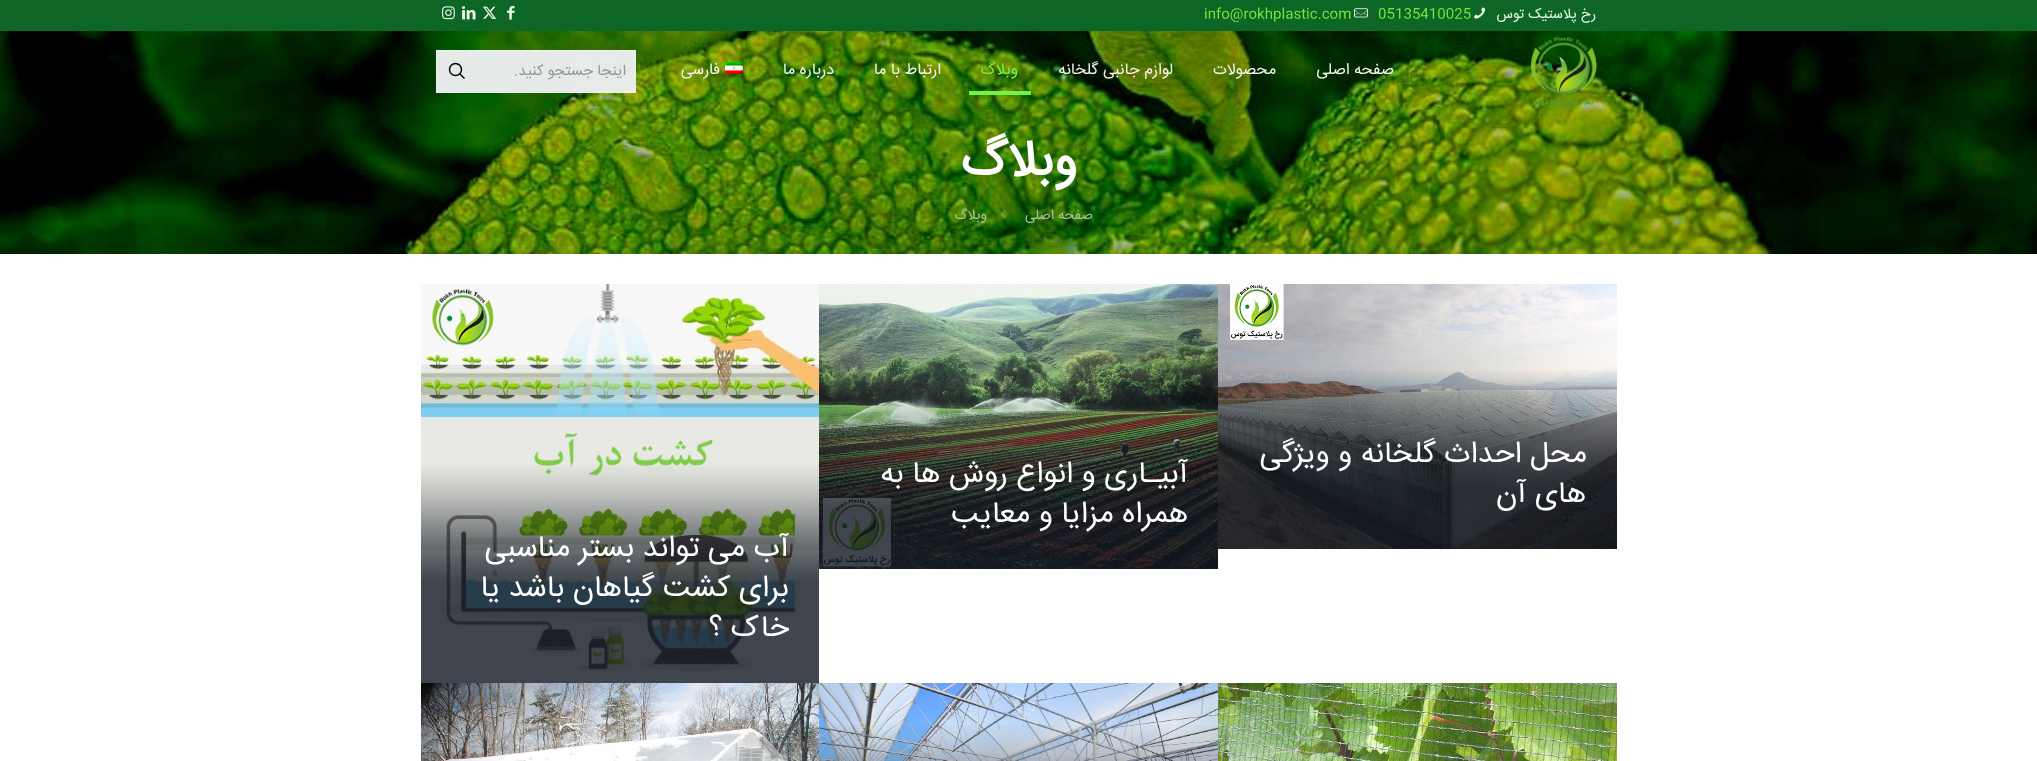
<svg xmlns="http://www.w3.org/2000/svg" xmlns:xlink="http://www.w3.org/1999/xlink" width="2037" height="761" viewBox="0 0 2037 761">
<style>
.cls-1{font:14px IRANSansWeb;direction:rtl;fill:#e9f8e8}
.cls-2{font:14px IRANSansWeb;fill:#76e83e}
.cls-3{font:16px IRANSansWeb;direction:rtl;fill:#f5f5e7}
.cls-4{font:16px IRANSansWeb;direction:rtl;fill:#73f348}
.cls-5{font:15px IRANSansWeb;direction:rtl;fill:#959595}
.cls-6{font:bold 50px IRANSansWeb;direction:rtl;fill:#ffffff}
.cls-7{font:14px IRANSansWeb;direction:rtl;fill:#a7c29a}
.cls-8{font:14px IRANSansWeb;direction:rtl;fill:#afc89b}
.cls-9{font:30px IRANSansWeb;direction:rtl;fill:#ffffff}
</style>
<rect width="100%" height="100%" fill="#ffffff"/>
<rect fill="#0d6526" x="0" y="0" width="2037" height="31"/>
<image xlink:href="image0.png" x="1474" y="7" width="12" height="12"/>
<image xlink:href="image1.png" x="1354" y="8" width="14" height="10"/>
<image xlink:href="image2.png" x="507" y="6" width="8" height="14"/>
<image xlink:href="image3.png" x="482" y="6" width="15" height="13"/>
<image xlink:href="image4.png" x="462" y="6" width="14" height="14"/>
<image xlink:href="image5.png" x="442" y="6" width="13" height="14"/>
<image xlink:href="image8.png" x="0" y="31" width="2037" height="223"/>
<image xlink:href="image6.png" x="1530" y="36" width="67" height="70"/>
<rect fill="#74f74a" fill-opacity="0.97" x="969" y="91" width="62" height="4"/>
<image xlink:href="image7.png" x="725" y="62" width="18" height="12"/>
<rect fill="#eceff1" fill-opacity="0.97" x="436" y="50" width="200" height="43"/>
<rect fill="none" stroke="#eceff1" stroke-opacity="0.97" x="436.5" y="50.5" width="199" height="42"/>
<circle fill="none" stroke="#070707" stroke-width="1.5" cx="455.5" cy="69.5" r="6"/>
<path fill="none" stroke="#000000" stroke-opacity="0.97" stroke-width="1.5" d="M459.5 73.5L464.5 78.5"/>
<image xlink:href="image9.png" x="1001" y="210" width="5" height="8"/>
<image xlink:href="image10.png" x="1218" y="284" width="399" height="265"/>
<image xlink:href="image11.png" x="1218" y="371" width="399" height="178"/>
<image xlink:href="image12.png" x="819" y="284" width="399" height="285"/>
<image xlink:href="image13.png" x="819" y="394" width="399" height="175"/>
<image xlink:href="image14.png" x="421" y="284" width="398" height="390"/>
<image xlink:href="image15.png" x="421" y="465" width="398" height="218"/>
<image xlink:href="image16.png" x="1218" y="683" width="399" height="78"/>
<image xlink:href="image17.png" x="819" y="683" width="399" height="78"/>
<image xlink:href="image18.png" x="819" y="725" width="399" height="36"/>
<image xlink:href="image19.png" x="421" y="683" width="398" height="78"/>
<text class="cls-1" x="1596" y="18">رخ پلاستیک توس</text>
<text class="cls-2" x="1378" y="18">05135410025</text>
<text class="cls-2" x="1204" y="18">info@rokhplastic.com</text>
<text class="cls-3" x="1394" y="74">صفحه اصلی</text>
<text class="cls-3" x="1276" y="74">محصولات</text>
<text class="cls-3" x="1173" y="74">لوازم جانبی گلخانه</text>
<text class="cls-4" x="1018" y="74">وبلاگ</text>
<text class="cls-3" x="941" y="74">ارتباط با ما</text>
<text class="cls-3" x="834" y="74">درباره ما</text>
<text class="cls-3" x="720" y="74">فارسی</text>
<text class="cls-5" x="626" y="75">اینجا جستجو کنید.</text>
<text class="cls-6" x="1077" y="175">وبلاگ</text>
<text class="cls-7" x="1093" y="219">صفحه اصلی</text>
<text class="cls-8" x="987" y="219">وبلاگ</text>
<text class="cls-9" x="1587" y="462">محل احداث گلخانه و ویژگی</text>
<text class="cls-9" x="1586" y="502">های آن</text>
<text class="cls-9"><tspan x="1188" y="482">آبیـاری و انواع روش ها به</tspan><tspan x="1188" y="522">همراه مزایا و معایب</tspan></text>
<text class="cls-9"><tspan x="789" y="556">آب می تواند بستر مناسبی</tspan><tspan x="789" y="596">برای کشت گیاهان باشد یا</tspan><tspan x="789" y="636">خاک ؟</tspan></text>
</svg>
